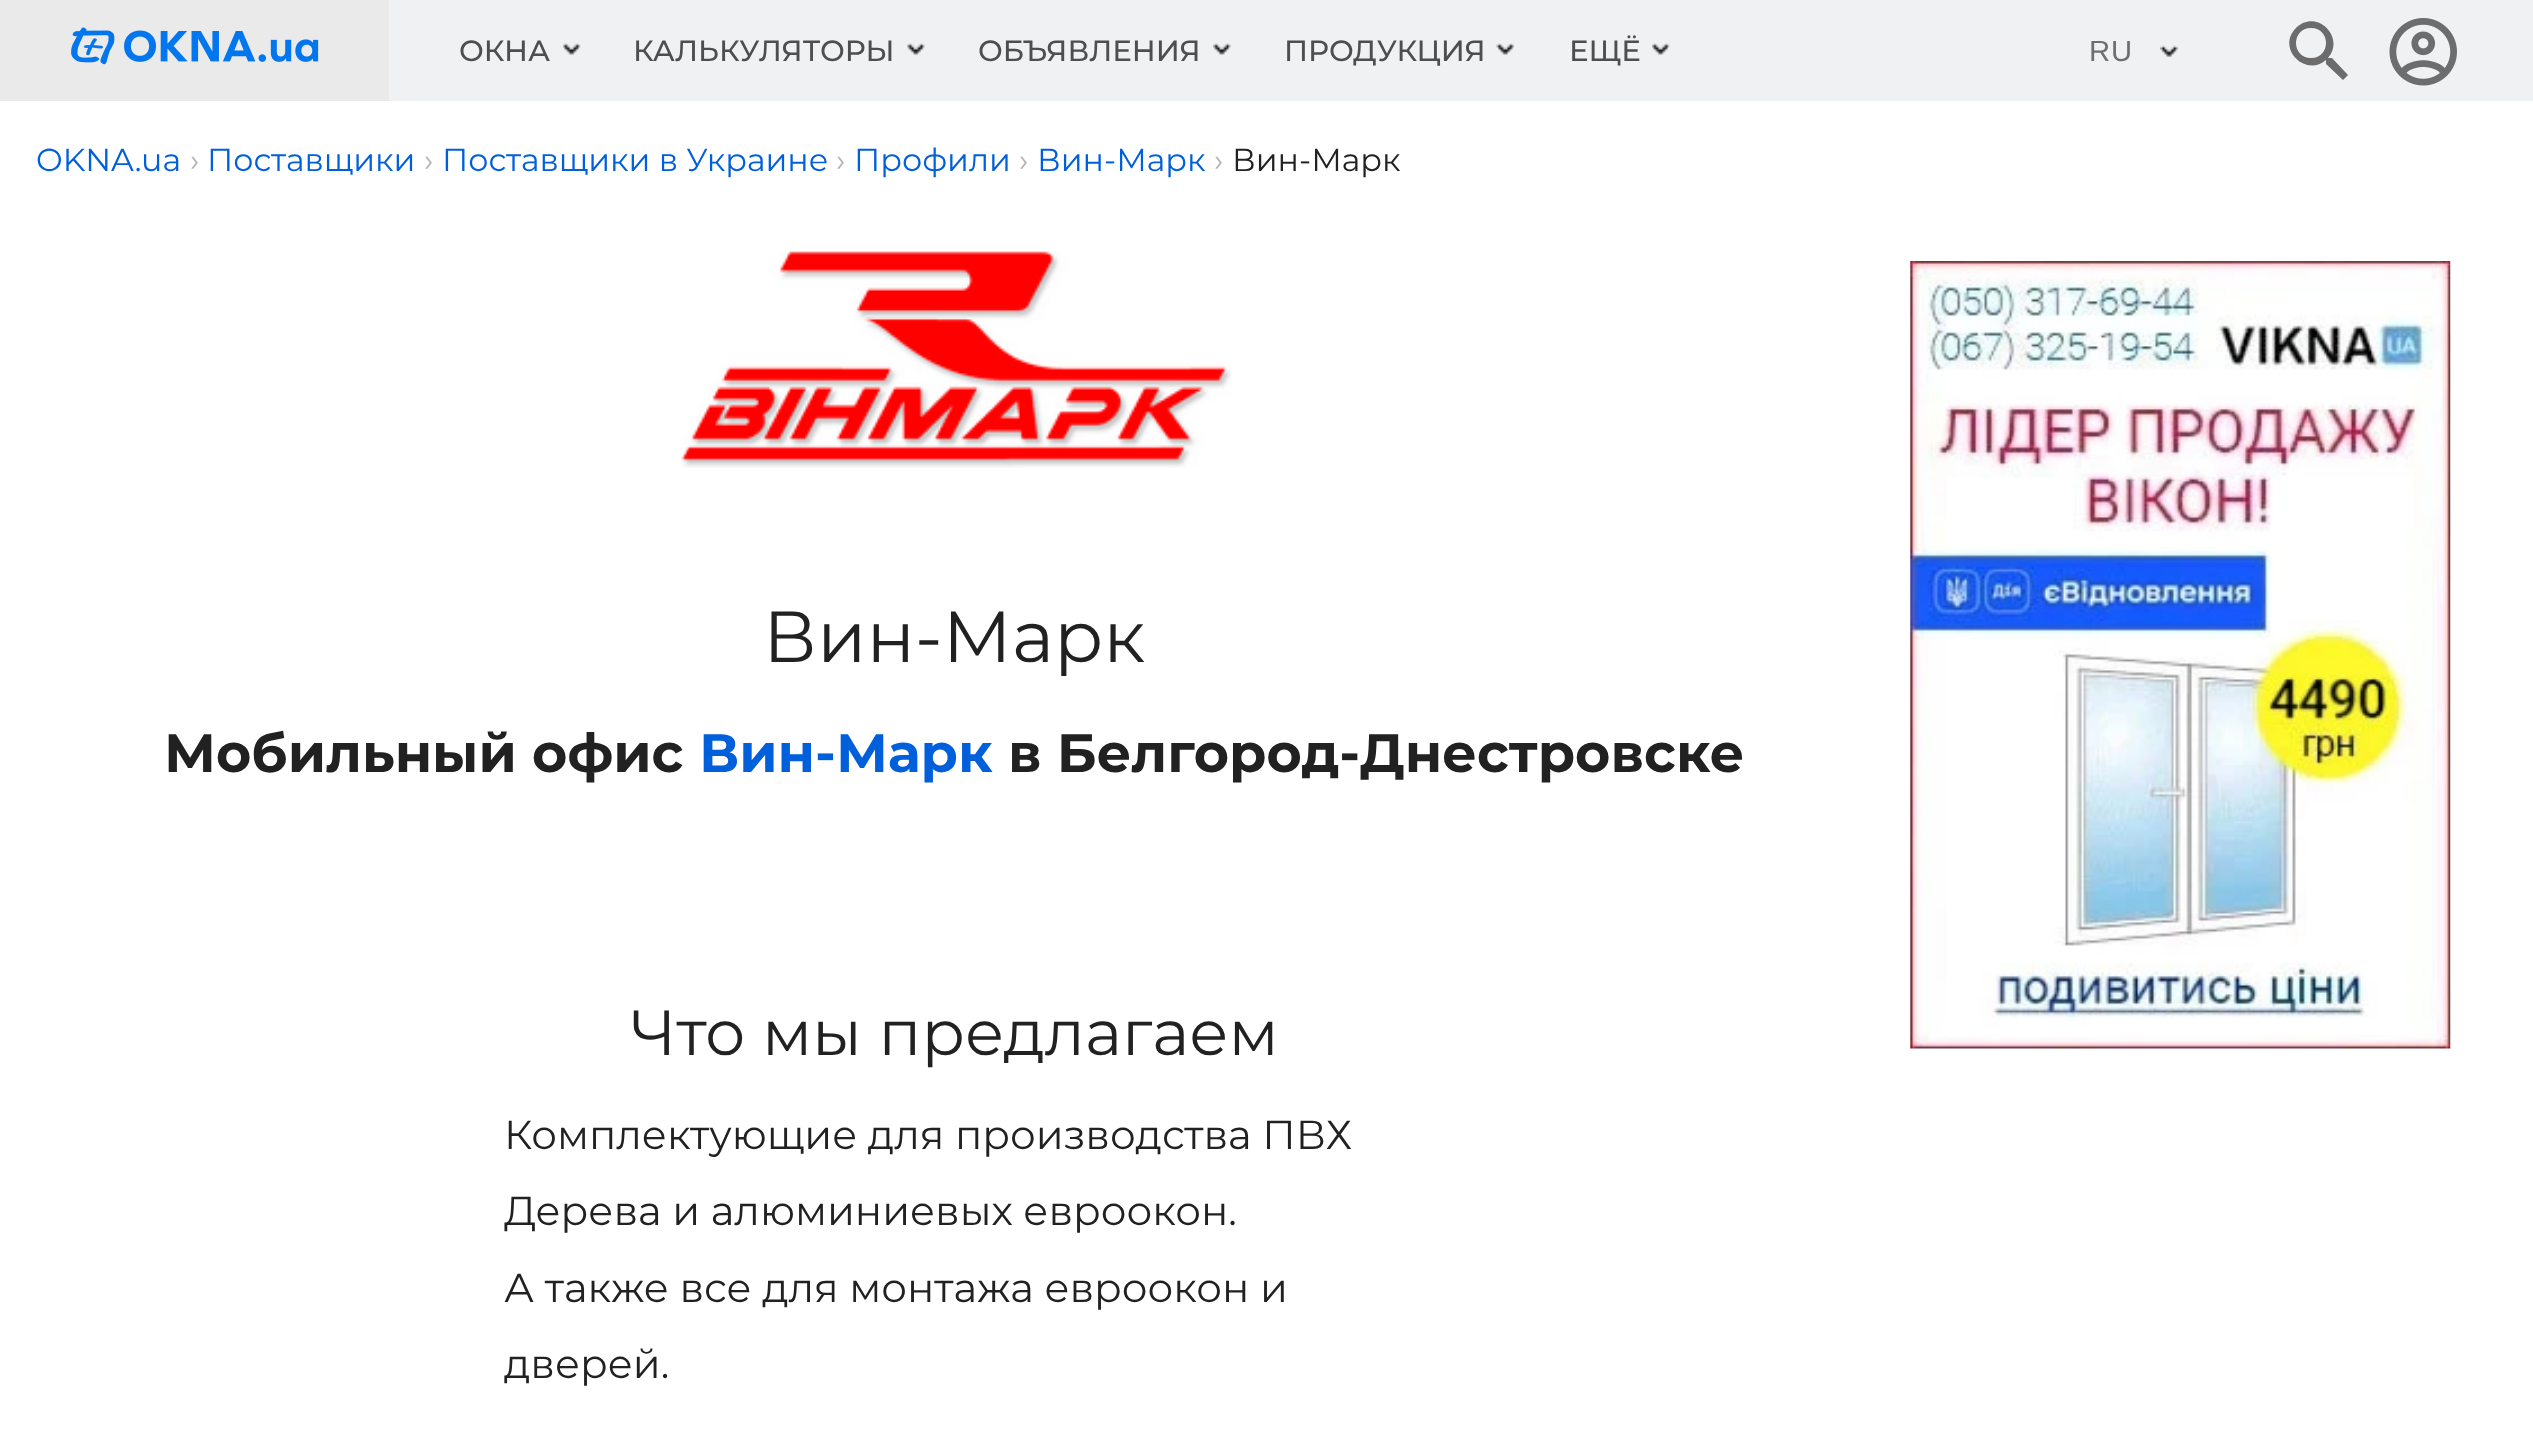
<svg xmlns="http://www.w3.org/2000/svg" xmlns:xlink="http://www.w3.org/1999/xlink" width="2533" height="1441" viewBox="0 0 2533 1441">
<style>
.cls-1{font:500 29.25px Montserrat;fill:#4e4e4e}
.cls-2{font:29.25px Liberation Sans;letter-spacing:1px;fill:#6e6f70}
.cls-3{font:31.75px Montserrat;fill:#005fda}
.cls-4{font:31.75px Montserrat;fill:#b3b3b3}
.cls-5{font:31.75px Montserrat;fill:#212121}
.cls-6{font:72px Montserrat;fill:#212121}
.cls-7{font:bold 54px Montserrat;fill:#212121}
.cls-8{font:bold 54px Montserrat;fill:#005fda}
.cls-9{font:63.5px Montserrat;fill:#212121}
.cls-10{font:40.5px Montserrat;fill:#212121}
</style>
<rect width="100%" height="100%" fill="#ffffff"/>
<rect fill="#eff1f3" x="389" y="0" width="2144" height="101"/>
<rect fill="#eaeaea" x="0" y="0" width="389" height="101"/>
<image xlink:href="image0.png" x="71" y="27" width="248" height="38"/>
<image xlink:href="image1.png" x="563" y="43" width="18" height="12"/>
<image xlink:href="image2.png" x="907" y="43" width="18" height="12"/>
<image xlink:href="image3.png" x="1213" y="43" width="18" height="12"/>
<image xlink:href="image4.png" x="1496" y="43" width="18" height="12"/>
<image xlink:href="image1.png" x="1652" y="43" width="18" height="12"/>
<image xlink:href="image5.png" x="2160" y="45" width="18" height="12"/>
<path fill="#6c6c6d" d="M2332 58H2329H2328C2346 37 2316 8 2296 28C2276 48 2305 78 2326 60V61V64L2343 80L2348 75ZM2311 58C2291 58 2291 28 2311 28C2331 28 2331 58 2311 58Z"/>
<image xlink:href="image6.png" x="2389" y="18" width="68" height="68"/>
<image xlink:href="image7.png" x="681" y="251" width="551" height="217"/>
<image xlink:href="image8.png" x="1910" y="261" width="541" height="788"/>
<text class="cls-1" x="459" y="61">ОКНА</text>
<text class="cls-1" x="633" y="61">КАЛЬКУЛЯТОРЫ</text>
<text class="cls-1" x="978" y="61">ОБЪЯВЛЕНИЯ</text>
<text class="cls-1" x="1284" y="61">ПРОДУКЦИЯ</text>
<text class="cls-1" x="1569" y="61">ЕЩЁ</text>
<text class="cls-2" x="2089" y="61">RU</text>
<text class="cls-3" x="36" y="171">OKNA.ua</text>
<text class="cls-4" x="190" y="171">›</text>
<text class="cls-3" x="207" y="171">Поставщики</text>
<text class="cls-4" x="424" y="171">›</text>
<text class="cls-3" x="442" y="171">Поставщики в Украине</text>
<text class="cls-4" x="836" y="171">›</text>
<text class="cls-3" x="854" y="171">Профили</text>
<text class="cls-4" x="1019" y="171">›</text>
<text class="cls-3" x="1037" y="171">Вин-Марк</text>
<text class="cls-4" x="1214" y="171">›</text>
<text class="cls-5" x="1232" y="171">Вин-Марк</text>
<text class="cls-6" x="763" y="662">Вин-Марк</text>
<text class="cls-7" x="164" y="772">Мобильный офис</text>
<text class="cls-8" x="699" y="772">Вин-Марк</text>
<text class="cls-7" x="1008" y="772">в Белгород-Днестровске</text>
<text class="cls-9" x="631" y="1055">Что мы предлагаем</text>
<text class="cls-10"><tspan x="504" y="1149">Комплектующие для производства ПВХ</tspan><tspan x="504" y="1225">Дерева и алюминиевых евроокон.</tspan><tspan x="504" y="1302">А также все для монтажа евроокон и</tspan><tspan x="504" y="1378">дверей.</tspan></text>
</svg>
